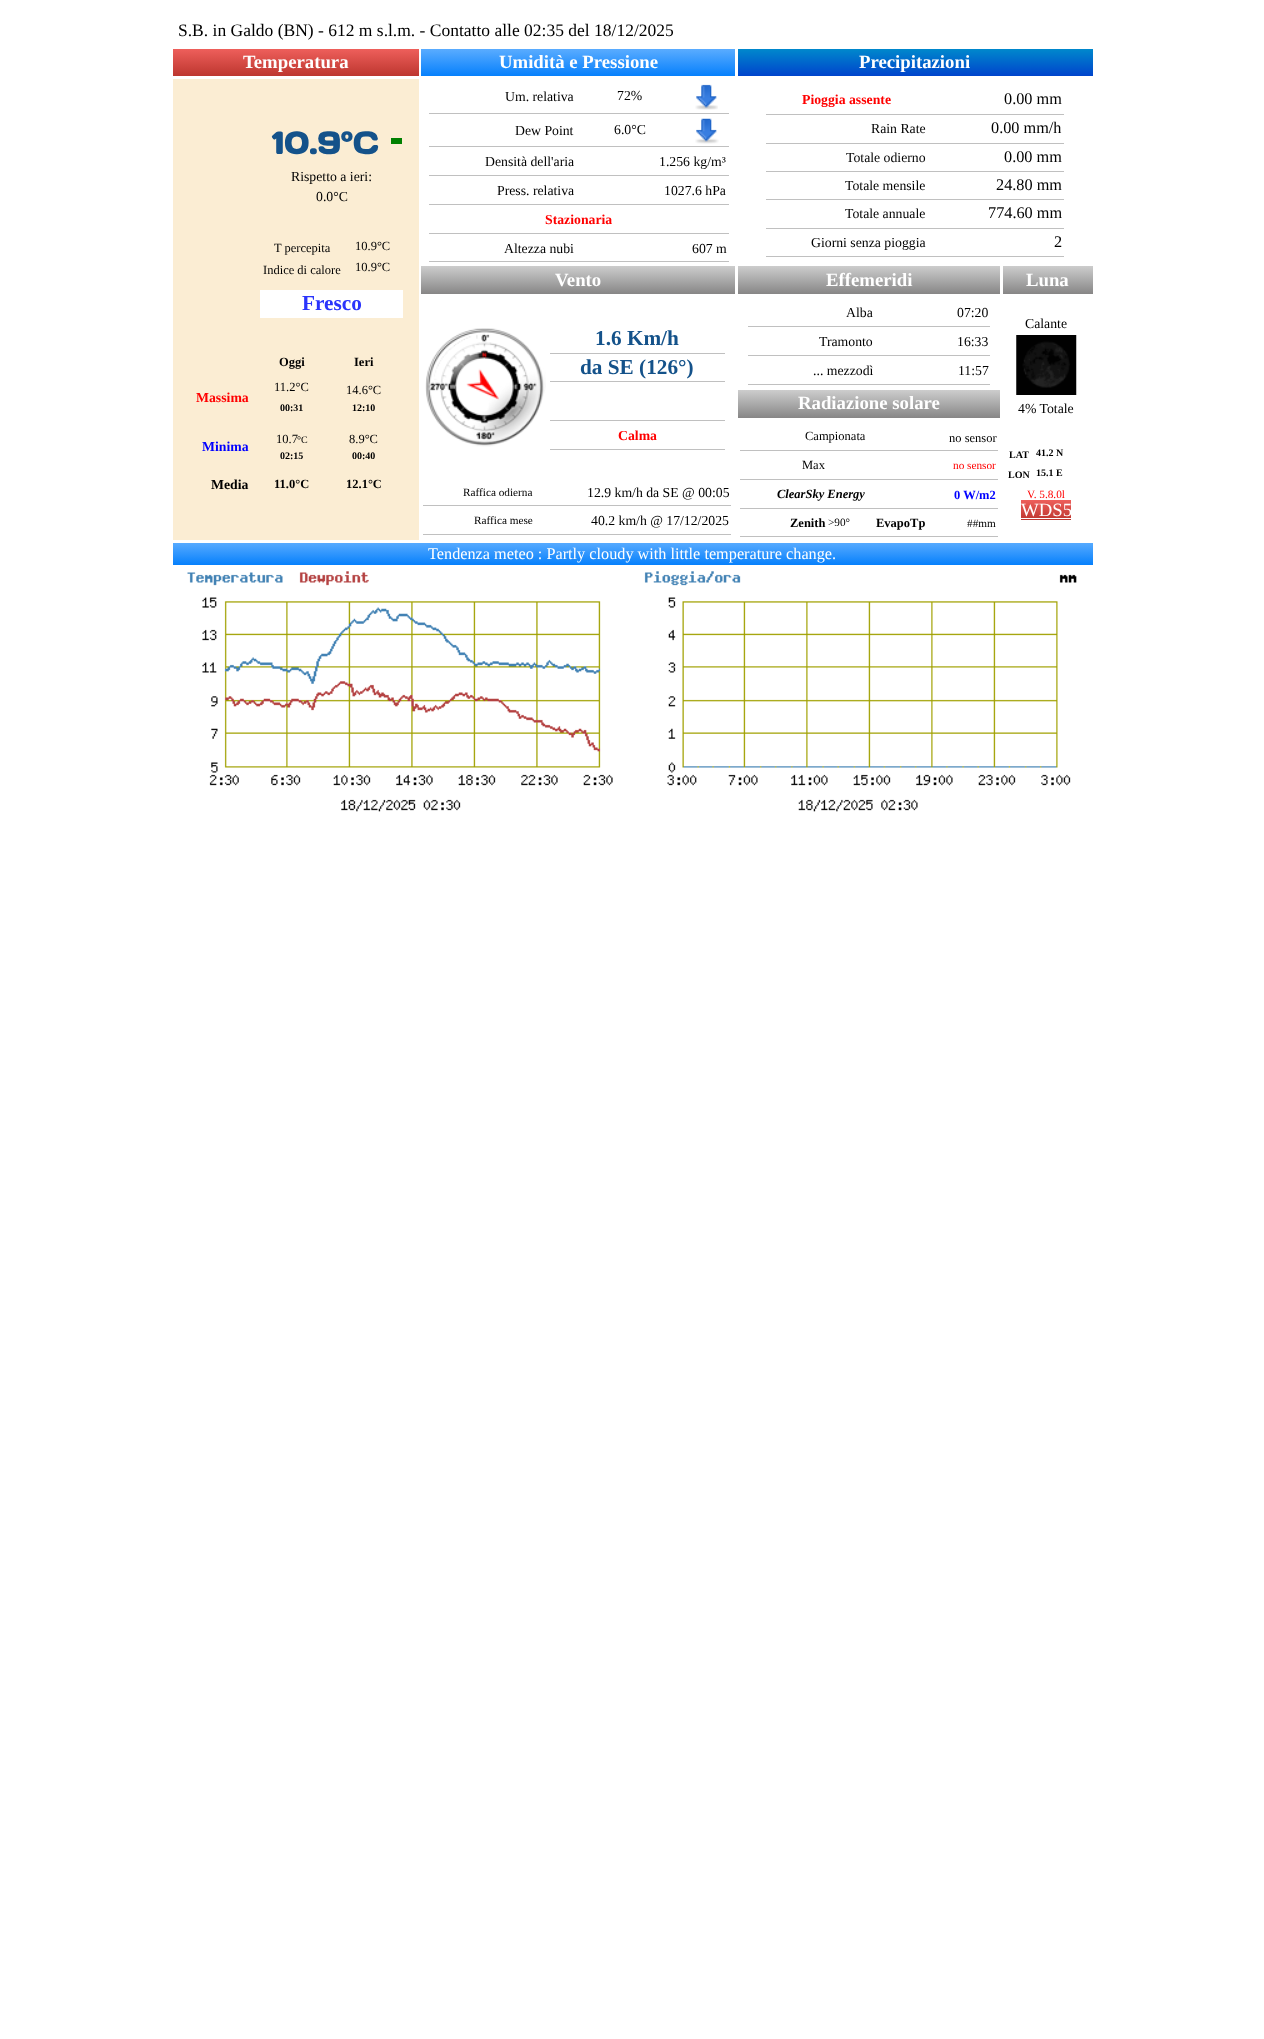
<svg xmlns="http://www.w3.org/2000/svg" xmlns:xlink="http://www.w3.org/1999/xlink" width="1264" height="2039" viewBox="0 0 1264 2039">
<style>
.cls-1{font:17.5px Liberation Serif;fill:#000000}
.cls-2{font:bold 18.75px Liberation Serif;fill:#ffffff}
.cls-3{font:bold 31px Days;fill:#14528a}
.cls-4{font:13.75px Liberation Serif;fill:#000000}
.cls-5{font:12.5px Liberation Serif;fill:#000000}
.cls-6{font:bold 21.25px Liberation Serif;fill:#2a34fc}
.cls-7{font:bold 12.5px Liberation Serif;fill:#000000}
.cls-8{font:bold 13.75px Liberation Serif;fill:#ff0000}
.cls-9{font:bold 10px Liberation Serif;fill:#000000}
.cls-10{font:10px Liberation Serif;fill:#000000}
.cls-11{font:bold 13.75px Liberation Serif;fill:#0000ff}
.cls-12{font:bold 13.75px Liberation Serif;fill:#000000}
.cls-13{font:16.25px Liberation Serif;fill:#000000}
.cls-14{font:bold 21.25px Liberation Serif;fill:#14528a}
.cls-15{font:11.25px Liberation Serif;fill:#000000}
.cls-16{font:11.25px Liberation Serif;fill:#ff0000}
.cls-17{font:18.75px Liberation Serif;fill:#ffffff}
.cls-18{font:italic bold 12.5px Liberation Serif;fill:#000000}
.cls-19{font:bold 12.5px Liberation Serif;fill:#0000ff}
.cls-20{font:16.25px Liberation Serif;fill:#ffffff}
</style>
<defs>
<linearGradient id="g1" gradientUnits="userSpaceOnUse" x1="296" y1="49" x2="296" y2="76"><stop offset="0" stop-color="#ee5f5b"/><stop offset="1" stop-color="#bd362f"/></linearGradient>
<linearGradient id="g2" gradientUnits="userSpaceOnUse" x1="578" y1="49" x2="578" y2="76"><stop offset="0" stop-color="#5aacff"/><stop offset="1" stop-color="#0680fc"/></linearGradient>
<linearGradient id="g3" gradientUnits="userSpaceOnUse" x1="915" y1="49" x2="915" y2="76"><stop offset="0" stop-color="#0088cc"/><stop offset="1" stop-color="#0044cc"/></linearGradient>
<linearGradient id="g4" gradientUnits="userSpaceOnUse" x1="578" y1="266" x2="578" y2="294"><stop offset="0" stop-color="#cdcdcd"/><stop offset="1" stop-color="#878686"/></linearGradient>
<linearGradient id="g5" gradientUnits="userSpaceOnUse" x1="869" y1="266" x2="869" y2="294"><stop offset="0" stop-color="#cdcdcd"/><stop offset="1" stop-color="#878686"/></linearGradient>
<linearGradient id="g6" gradientUnits="userSpaceOnUse" x1="1048" y1="266" x2="1048" y2="294"><stop offset="0" stop-color="#cdcdcd"/><stop offset="1" stop-color="#878686"/></linearGradient>
<linearGradient id="g7" gradientUnits="userSpaceOnUse" x1="1046" y1="500" x2="1046" y2="520"><stop offset="0" stop-color="#ee5f5b"/><stop offset="1" stop-color="#bd362f"/></linearGradient>
<linearGradient id="g8" gradientUnits="userSpaceOnUse" x1="869" y1="390" x2="869" y2="418"><stop offset="0" stop-color="#cdcdcd"/><stop offset="1" stop-color="#878686"/></linearGradient>
<linearGradient id="g9" gradientUnits="userSpaceOnUse" x1="633" y1="542" x2="633" y2="565"><stop offset="0" stop-color="#5aacff"/><stop offset="1" stop-color="#0680fc"/></linearGradient>
</defs>
<rect width="100%" height="100%" fill="#ffffff"/>
<rect fill="url(#g1)" x="173" y="49" width="246" height="27"/>
<rect fill="url(#g2)" x="421" y="49" width="314" height="27"/>
<rect fill="url(#g3)" x="738" y="49" width="355" height="27"/>
<rect fill="#fbedd3" x="173" y="79" width="246" height="461"/>
<rect fill="#008000" x="391" y="138" width="11" height="6"/>
<rect fill="#ffffff" x="260" y="290" width="143" height="28"/>
<rect fill="#c0c0c0" x="429" y="113" width="300" height="1"/>
<image xlink:href="image0.png" x="695" y="84" width="23" height="26"/>
<rect fill="#c0c0c0" x="429" y="146" width="300" height="1"/>
<image xlink:href="image1.png" x="695" y="118" width="24" height="26"/>
<rect fill="#c0c0c0" x="429" y="175" width="300" height="1"/>
<rect fill="#c0c0c0" x="429" y="204" width="300" height="1"/>
<rect fill="#c0c0c0" x="429" y="233" width="300" height="1"/>
<rect fill="#c0c0c0" x="429" y="261" width="300" height="1"/>
<rect fill="#c0c0c0" x="766" y="114" width="298" height="1"/>
<rect fill="#c0c0c0" x="766" y="143" width="298" height="1"/>
<rect fill="#c0c0c0" x="766" y="171" width="298" height="1"/>
<rect fill="#c0c0c0" x="766" y="199" width="298" height="1"/>
<rect fill="#c0c0c0" x="766" y="228" width="298" height="1"/>
<rect fill="#c0c0c0" x="766" y="256" width="298" height="1"/>
<rect fill="url(#g4)" x="421" y="266" width="314" height="28"/>
<rect fill="url(#g5)" x="738" y="266" width="262" height="28"/>
<rect fill="url(#g6)" x="1003" y="266" width="90" height="28"/>
<image xlink:href="image2.png" x="425" y="328" width="121" height="119"/>
<rect fill="#c0c0c0" x="550" y="353" width="175" height="1"/>
<rect fill="#c0c0c0" x="550" y="381" width="175" height="1"/>
<rect fill="#c0c0c0" x="550" y="420" width="175" height="1"/>
<rect fill="#c0c0c0" x="550" y="449" width="175" height="1"/>
<rect fill="#c0c0c0" x="423" y="505" width="308" height="1"/>
<rect fill="#c0c0c0" x="423" y="534" width="308" height="1"/>
<rect fill="#c0c0c0" x="748" y="326" width="242" height="1"/>
<rect fill="#c0c0c0" x="748" y="355" width="242" height="1"/>
<rect fill="#c0c0c0" x="748" y="384" width="242" height="1"/>
<image xlink:href="image3.png" x="1016" y="335" width="61" height="60"/>
<rect fill="url(#g7)" x="1021" y="500" width="50" height="20"/>
<rect fill="#ffffff" x="1021" y="518" width="50" height="1"/>
<rect fill="url(#g8)" x="738" y="390" width="262" height="28"/>
<rect fill="#c0c0c0" x="740" y="450" width="258" height="1"/>
<rect fill="#c0c0c0" x="740" y="479" width="258" height="1"/>
<rect fill="#c0c0c0" x="740" y="508" width="258" height="1"/>
<rect fill="#c0c0c0" x="740" y="536" width="258" height="1"/>
<rect fill="url(#g9)" x="173" y="543" width="920" height="22"/>
<image xlink:href="image4.png" x="187" y="571" width="426" height="241"/>
<image xlink:href="image5.png" x="644" y="571" width="433" height="241"/>
<text class="cls-1" x="178" y="36">S.B. in Galdo (BN) - 612 m s.l.m. - Contatto alle 02:35 del 18/12/2025</text>
<text class="cls-2" x="243" y="68">Temperatura</text>
<text class="cls-2" x="499" y="68">Umidità e Pressione</text>
<text class="cls-2" x="859" y="68">Precipitazioni</text>
<text class="cls-3" x="272" y="154">10.9°C</text>
<text class="cls-4" x="291" y="181">Rispetto a ieri:</text>
<text class="cls-4" x="316" y="201">0.0°C</text>
<text class="cls-5" x="274" y="252">T percepita</text>
<text class="cls-5" x="355" y="250">10.9°C</text>
<text class="cls-5" x="263" y="274">Indice di calore</text>
<text class="cls-5" x="355" y="271">10.9°C</text>
<text class="cls-6" x="302" y="310">Fresco</text>
<text class="cls-7" x="279" y="366">Oggi</text>
<text class="cls-7" x="354" y="366">Ieri</text>
<text class="cls-5" x="274" y="391">11.2°C</text>
<text class="cls-5" x="346" y="394">14.6°C</text>
<text class="cls-8" x="196" y="402">Massima</text>
<text class="cls-9" x="280" y="411">00:31</text>
<text class="cls-9" x="352" y="411">12:10</text>
<text class="cls-5" x="276" y="443">10.7</text>
<text class="cls-10" x="297" y="443">°C</text>
<text class="cls-5" x="349" y="443">8.9°C</text>
<text class="cls-11" x="202" y="451">Minima</text>
<text class="cls-9" x="280" y="459">02:15</text>
<text class="cls-9" x="352" y="459">00:40</text>
<text class="cls-12" x="211" y="489">Media</text>
<text class="cls-7" x="274" y="488">11.0°C</text>
<text class="cls-7" x="346" y="488">12.1°C</text>
<text class="cls-4" x="505" y="101">Um. relativa</text>
<text class="cls-4" x="617" y="100">72%</text>
<text class="cls-4" x="515" y="135">Dew Point</text>
<text class="cls-4" x="614" y="134">6.0°C</text>
<text class="cls-4" x="485" y="166">Densità dell'aria</text>
<text class="cls-4" x="659" y="166">1.256 kg/m³</text>
<text class="cls-4" x="497" y="195">Press. relativa</text>
<text class="cls-4" x="664" y="195">1027.6 hPa</text>
<text class="cls-8" x="545" y="224">Stazionaria</text>
<text class="cls-4" x="504" y="253">Altezza nubi</text>
<text class="cls-4" x="692" y="253">607 m</text>
<text class="cls-8" x="802" y="104">Pioggia assente</text>
<text class="cls-13" x="1004" y="104">0.00 mm</text>
<text class="cls-4" x="871" y="133">Rain Rate</text>
<text class="cls-13" x="991" y="133">0.00 mm/h</text>
<text class="cls-4" x="846" y="162">Totale odierno</text>
<text class="cls-13" x="1004" y="162">0.00 mm</text>
<text class="cls-4" x="845" y="190">Totale mensile</text>
<text class="cls-13" x="996" y="190">24.80 mm</text>
<text class="cls-4" x="845" y="218">Totale annuale</text>
<text class="cls-13" x="988" y="218">774.60 mm</text>
<text class="cls-4" x="811" y="247">Giorni senza pioggia</text>
<text class="cls-13" x="1054" y="247">2</text>
<text class="cls-2" x="555" y="286">Vento</text>
<text class="cls-2" x="826" y="286">Effemeridi</text>
<text class="cls-2" x="1026" y="286">Luna</text>
<text class="cls-14" x="595" y="345">1.6 Km/h</text>
<text class="cls-14" x="580" y="374">da SE (126°)</text>
<text class="cls-8" x="618" y="440">Calma</text>
<text class="cls-15" x="463" y="496">Raffica odierna</text>
<text class="cls-4" x="587" y="497">12.9 km/h da SE @ 00:05</text>
<text class="cls-15" x="474" y="524">Raffica mese</text>
<text class="cls-4" x="591" y="525">40.2 km/h @ 17/12/2025</text>
<text class="cls-4" x="846" y="317">Alba</text>
<text class="cls-4" x="957" y="317">07:20</text>
<text class="cls-4" x="819" y="346">Tramonto</text>
<text class="cls-4" x="957" y="346">16:33</text>
<text class="cls-4" x="813" y="375">... mezzodì</text>
<text class="cls-4" x="958" y="375">11:57</text>
<text class="cls-4" x="1025" y="328">Calante</text>
<text class="cls-4" x="1018" y="413">4% Totale</text>
<text class="cls-9" x="1009" y="458">LAT</text>
<text class="cls-9" x="1036" y="456">41.2 N</text>
<text class="cls-9" x="1008" y="478">LON</text>
<text class="cls-9" x="1036" y="476">15.1 E</text>
<text class="cls-16" x="1027" y="498">V. 5.8.0l</text>
<text class="cls-17" x="1021" y="516">WDS5</text>
<text class="cls-2" x="798" y="409">Radiazione solare</text>
<text class="cls-5" x="805" y="440">Campionata</text>
<text class="cls-5" x="949" y="442">no sensor</text>
<text class="cls-5" x="802" y="469">Max</text>
<text class="cls-16" x="953" y="469">no sensor</text>
<text class="cls-18" x="777" y="498">ClearSky Energy</text>
<text class="cls-19" x="954" y="499">0 W/m2</text>
<text class="cls-7" x="790" y="527">Zenith</text>
<text class="cls-15" x="828" y="526">&gt;90°</text>
<text class="cls-7" x="876" y="527">EvapoTp</text>
<text class="cls-15" x="967" y="527">##mm</text>
<text class="cls-20" x="428" y="559">Tendenza meteo : Partly cloudy with little temperature change.</text>
</svg>
